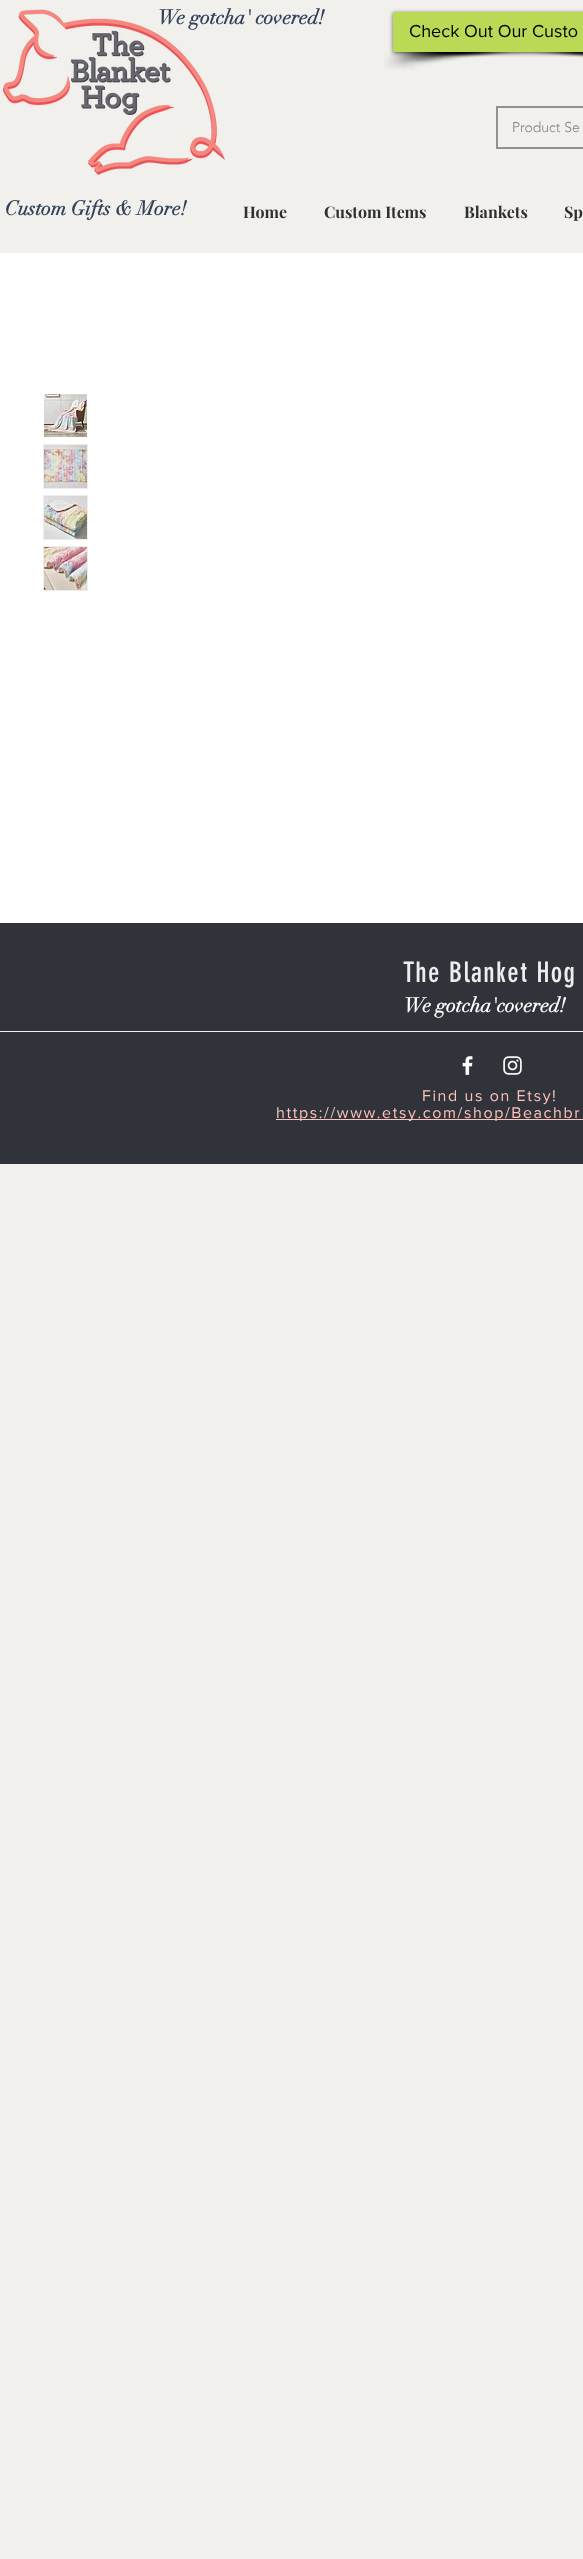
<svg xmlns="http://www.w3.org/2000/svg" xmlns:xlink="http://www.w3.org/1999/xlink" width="583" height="2559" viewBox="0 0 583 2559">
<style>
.cls-1{font:bold 20px didot;fill:#324158}
.cls-2{font:18px 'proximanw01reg';fill:#000000}
.cls-3{font:300 14px 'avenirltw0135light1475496';fill:#7f808a}
.cls-4{font:bold 16px Playfair Display;fill:#2f2f30}
.cls-5{font:28px 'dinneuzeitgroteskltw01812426';letter-spacing:1.4px;fill:#ededee}
.cls-6{font:bold 20px didot;fill:#ffffff}
.cls-7{font:16px 'proximanw01reg';letter-spacing:1.6px;fill:#fdc3ba}
</style>
<rect width="100%" height="100%" fill="#f1f0ec"/>
<image xlink:href="image0.png" x="3" y="9" width="222" height="166"/>
<image xlink:href="image1.png" x="384" y="52" width="154" height="18"/>
<image xlink:href="image2.png" x="515" y="52" width="68" height="6"/>
<rect fill="#000000" fill-opacity="0.6" filter="blur(2px)" x="393" y="13" width="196" height="40"/>
<rect fill="#bada55" x="393" y="12" width="190" height="40"/>
<rect fill="none" stroke="#919191" stroke-width="2" x="497" y="107" width="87" height="41"/>
<rect fill="#ffffff" x="0" y="253" width="583" height="670"/>
<image xlink:href="image3.png" x="44" y="394" width="43" height="43"/>
<rect fill="none" stroke="#ededee" x="43.5" y="444.5" width="44" height="44"/>
<image xlink:href="image4.png" x="44" y="445" width="43" height="43"/>
<rect fill="none" stroke="#ededee" x="43.5" y="495.5" width="44" height="44"/>
<image xlink:href="image5.png" x="44" y="496" width="43" height="43"/>
<rect fill="none" stroke="#ededee" x="43.5" y="546.5" width="44" height="44"/>
<image xlink:href="image6.png" x="44" y="547" width="43" height="43"/>
<rect fill="#31333a" x="0" y="923" width="583" height="241"/>
<rect fill="#f1f0ec" x="0" y="1031" width="583" height="1"/>
<image xlink:href="image7.png" x="462" y="1056" width="11" height="19"/>
<image xlink:href="image8.png" x="503" y="1056" width="19" height="19"/>
<rect fill="#fdc3ba" x="276" y="1119" width="307" height="1"/>
<text class="cls-1" x="158" y="24">We gotcha' covered!</text>
<text class="cls-2" x="409" y="37">Check Out Our Custo</text>
<text class="cls-3" x="512" y="132">Product Se</text>
<text class="cls-1" x="5" y="215">Custom Gifts &amp; More!</text>
<text class="cls-4" x="243" y="218">Home</text>
<text class="cls-4" x="324" y="218">Custom Items</text>
<text class="cls-4" x="464" y="218">Blankets</text>
<text class="cls-4" x="564" y="218">Sp</text>
<text class="cls-5" x="403" y="982">The Blanket Hog</text>
<text class="cls-6" x="404" y="1012">We gotcha'covered!</text>
<text class="cls-7" x="422" y="1101">Find us on Etsy!</text>
<text class="cls-7" x="276" y="1118">https://www.etsy.com/shop/Beachbr</text>
</svg>
